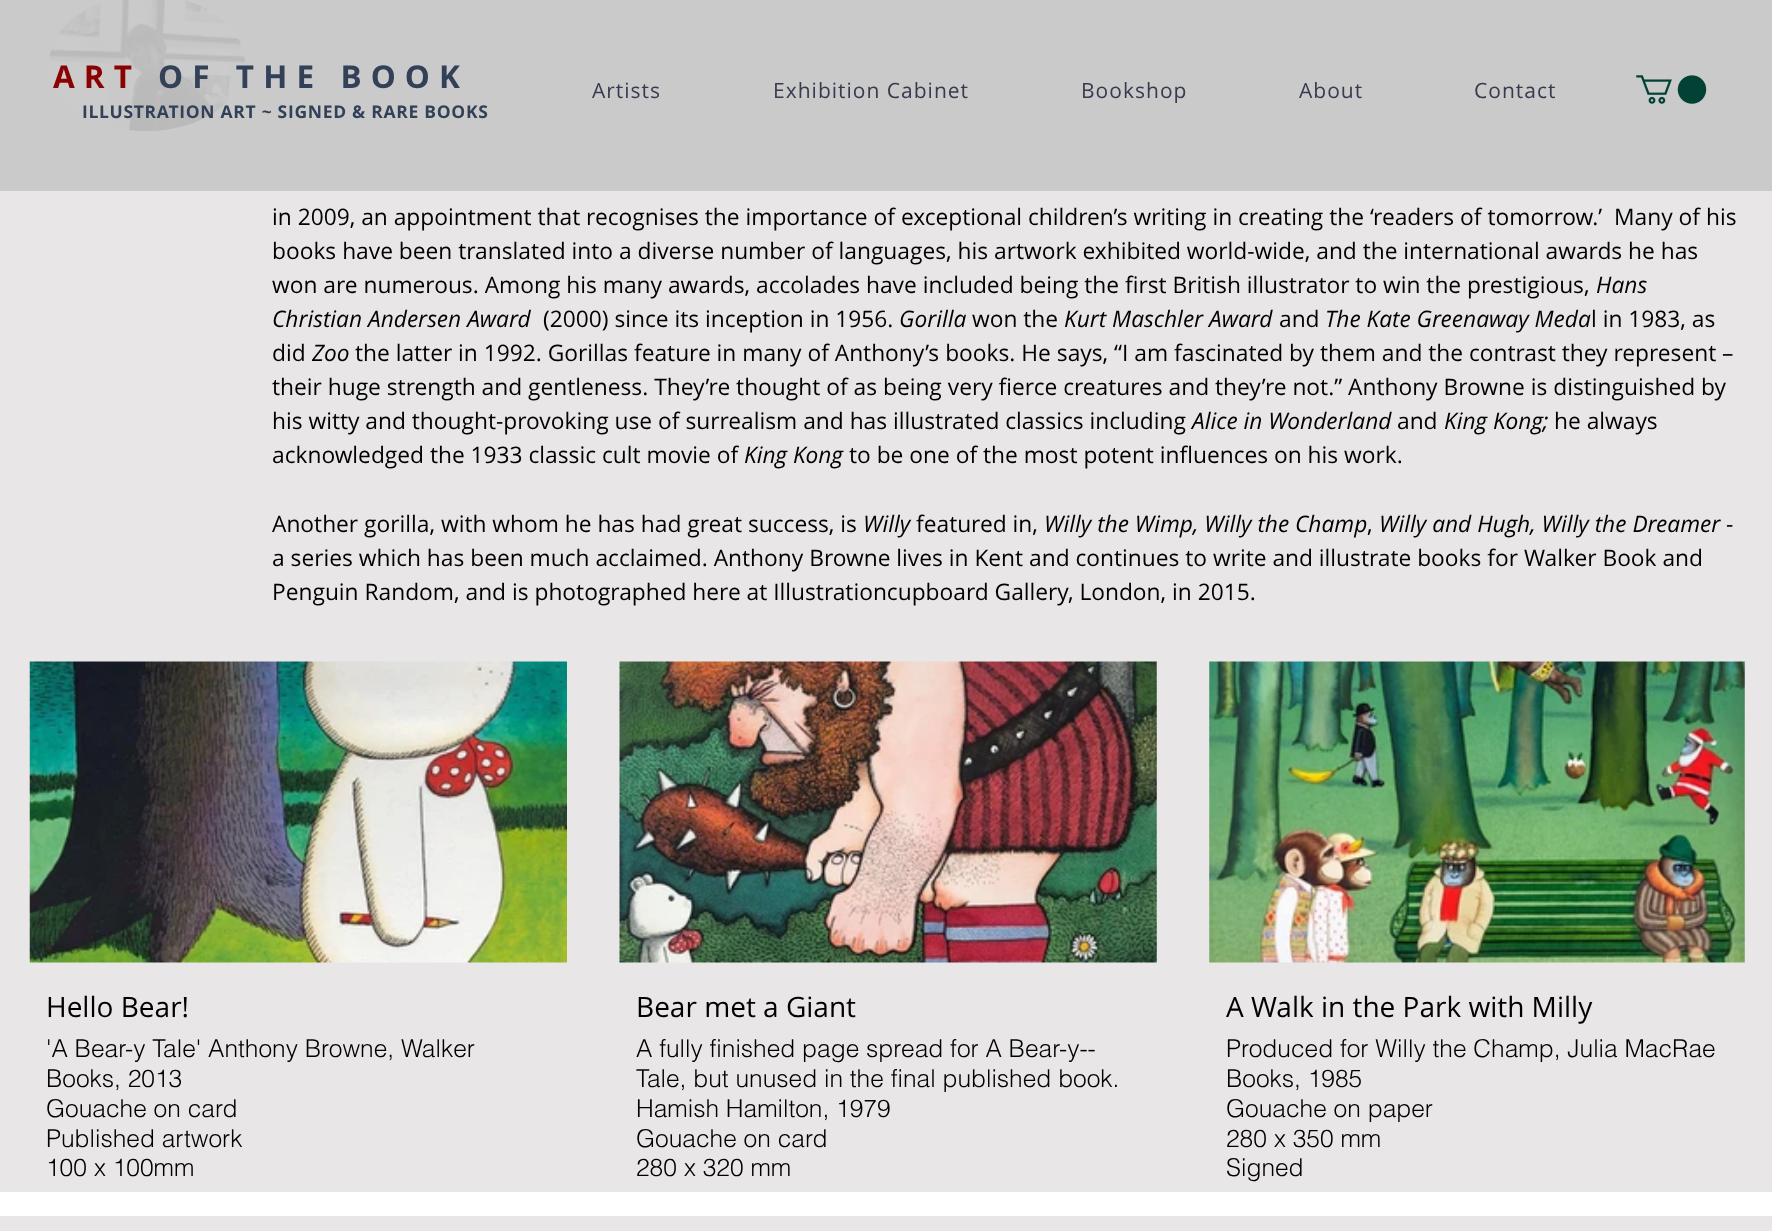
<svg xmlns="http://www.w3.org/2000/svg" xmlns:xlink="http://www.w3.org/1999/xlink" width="1772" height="1231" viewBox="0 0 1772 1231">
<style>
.cls-1{font:bold 31.5px Open Sans;letter-spacing:9.1px;fill:#8b0000}
.cls-2{font:bold 31.5px Open Sans;letter-spacing:9.1px;fill:#324158}
.cls-3{font:bold 17.5px Open Sans;letter-spacing:0.7px;fill:#324158}
.cls-4{font:21px Open Sans;letter-spacing:1px;fill:#373b4d}
.cls-5{font:22.75px Open Sans;fill:#000000}
.cls-6{font:italic 22.75px Open Sans;fill:#000000}
.cls-7{font:28px Open Sans;fill:#000000}
.cls-8{font:300 24.5px helvetica;fill:#000000}
</style>
<rect width="100%" height="100%" fill="#e8e6e6"/>
<ellipse fill="#ffffff" cx="147" cy="63" rx="98" ry="68"/>
<image xlink:href="image1.png" x="49" y="0" width="196" height="131"/>
<rect fill="#c7c7c7" fill-opacity="0.93" x="0" y="0" width="1772" height="191"/>
<image xlink:href="image0.png" x="1636" y="75" width="71" height="29"/>
<image xlink:href="image2.png" x="29" y="661" width="538" height="302"/>
<image xlink:href="image3.png" x="619" y="661" width="538" height="302"/>
<image xlink:href="image4.png" x="1209" y="661" width="536" height="302"/>
<rect fill="#ffffff" x="0" y="1192" width="1772" height="24"/>
<text class="cls-1" x="53" y="88">ART</text>
<text class="cls-2" x="158" y="88">OF THE BOOK</text>
<text class="cls-3" x="82" y="118">ILLUSTRATION ART ~ SIGNED &amp; RARE BOOKS</text>
<text class="cls-4" x="592" y="98">Artists</text>
<text class="cls-4" x="773" y="98">Exhibition Cabinet</text>
<text class="cls-4" x="1081" y="98">Bookshop</text>
<text class="cls-4" x="1299" y="98">About</text>
<text class="cls-4" x="1474" y="98">Contact</text>
<text class="cls-5" xml:space="preserve"><tspan x="272" y="225">in 2009, an appointment that recognises the importance of exceptional children’s writing in creating the ‘readers of tomorrow.’  Many of his</tspan><tspan x="272" y="259">books have been translated into a diverse number of languages, his artwork exhibited world-wide, and the international awards he has</tspan><tspan x="272" y="293">won are numerous. Among his many awards, accolades have included being the first British illustrator to win the prestigious,</tspan></text>
<text class="cls-6" x="1596" y="293">Hans</text>
<text class="cls-6" x="272" y="327">Christian Andersen Award</text>
<text class="cls-5" x="543" y="327">(2000) since its inception in 1956.</text>
<text class="cls-6" x="899" y="327">Gorilla</text>
<text class="cls-5" x="972" y="327">won the</text>
<text class="cls-6" x="1064" y="327">Kurt Maschler Award</text>
<text class="cls-5" x="1279" y="327">and</text>
<text class="cls-6" x="1325" y="327">The Kate Greenaway Meda</text>
<text class="cls-5" x="1591" y="327">l in 1983, as</text>
<text class="cls-5" x="272" y="361">did</text>
<text class="cls-6" x="312" y="361">Zoo</text>
<text class="cls-5" x="355" y="361">the latter in 1992. Gorillas feature in many of Anthony’s books. He says, “I am fascinated by them and the contrast they represent –</text>
<text class="cls-5"><tspan x="272" y="395">their huge strength and gentleness. They’re thought of as being very fierce creatures and they’re not.” Anthony Browne is distinguished by</tspan><tspan x="272" y="429">his witty and thought-provoking use of surrealism and has illustrated classics including</tspan></text>
<text class="cls-6" x="1192" y="429">Alice in Wonderland</text>
<text class="cls-5" x="1397" y="429">and</text>
<text class="cls-6" x="1444" y="429">King Kong;</text>
<text class="cls-5" x="1554" y="429">he always</text>
<text class="cls-5" x="272" y="463">acknowledged the 1933 classic cult movie of</text>
<text class="cls-6" x="744" y="463">King Kong</text>
<text class="cls-5" x="849" y="463">to be one of the most potent influences on his work.</text>
<text class="cls-5" x="272" y="532">Another gorilla, with whom he has had great success, is</text>
<text class="cls-6" x="863" y="532">Willy</text>
<text class="cls-5" x="916" y="532">featured in,</text>
<text class="cls-6" x="1044" y="532">Willy the Wimp, Willy the Champ</text>
<text class="cls-6" x="1379" y="532">Willy and Hugh, Willy the Dreamer</text>
<text class="cls-5" x="1726" y="532">-</text>
<text class="cls-5" x="1367" y="532">,</text>
<text class="cls-5"><tspan x="272" y="566">a series which has been much acclaimed. Anthony Browne lives in Kent and continues to write and illustrate books for Walker Book and</tspan><tspan x="272" y="600">Penguin Random, and is photographed here at Illustrationcupboard Gallery, London, in 2015.</tspan></text>
<text class="cls-7" x="46" y="1017">Hello Bear!</text>
<text class="cls-8"><tspan x="46" y="1057">'A Bear-y Tale' Anthony Browne, Walker</tspan><tspan x="46" y="1087">Books, 2013</tspan><tspan x="46" y="1117">Gouache on card</tspan><tspan x="46" y="1147">Published artwork</tspan><tspan x="46" y="1176">100 x 100mm</tspan></text>
<text class="cls-7" x="636" y="1017">Bear met a Giant</text>
<text class="cls-8"><tspan x="636" y="1057">A fully finished page spread for A Bear-y--</tspan><tspan x="636" y="1087">Tale, but unused in the final published book.</tspan><tspan x="636" y="1117">Hamish Hamilton, 1979</tspan><tspan x="636" y="1147">Gouache on card</tspan><tspan x="636" y="1176">280 x 320 mm</tspan></text>
<text class="cls-7" x="1226" y="1017">A Walk in the Park with Milly</text>
<text class="cls-8"><tspan x="1226" y="1057">Produced for Willy the Champ, Julia MacRae</tspan><tspan x="1226" y="1087">Books, 1985</tspan><tspan x="1226" y="1117">Gouache on paper</tspan><tspan x="1226" y="1147">280 x 350 mm</tspan><tspan x="1226" y="1176">Signed</tspan></text>
</svg>
